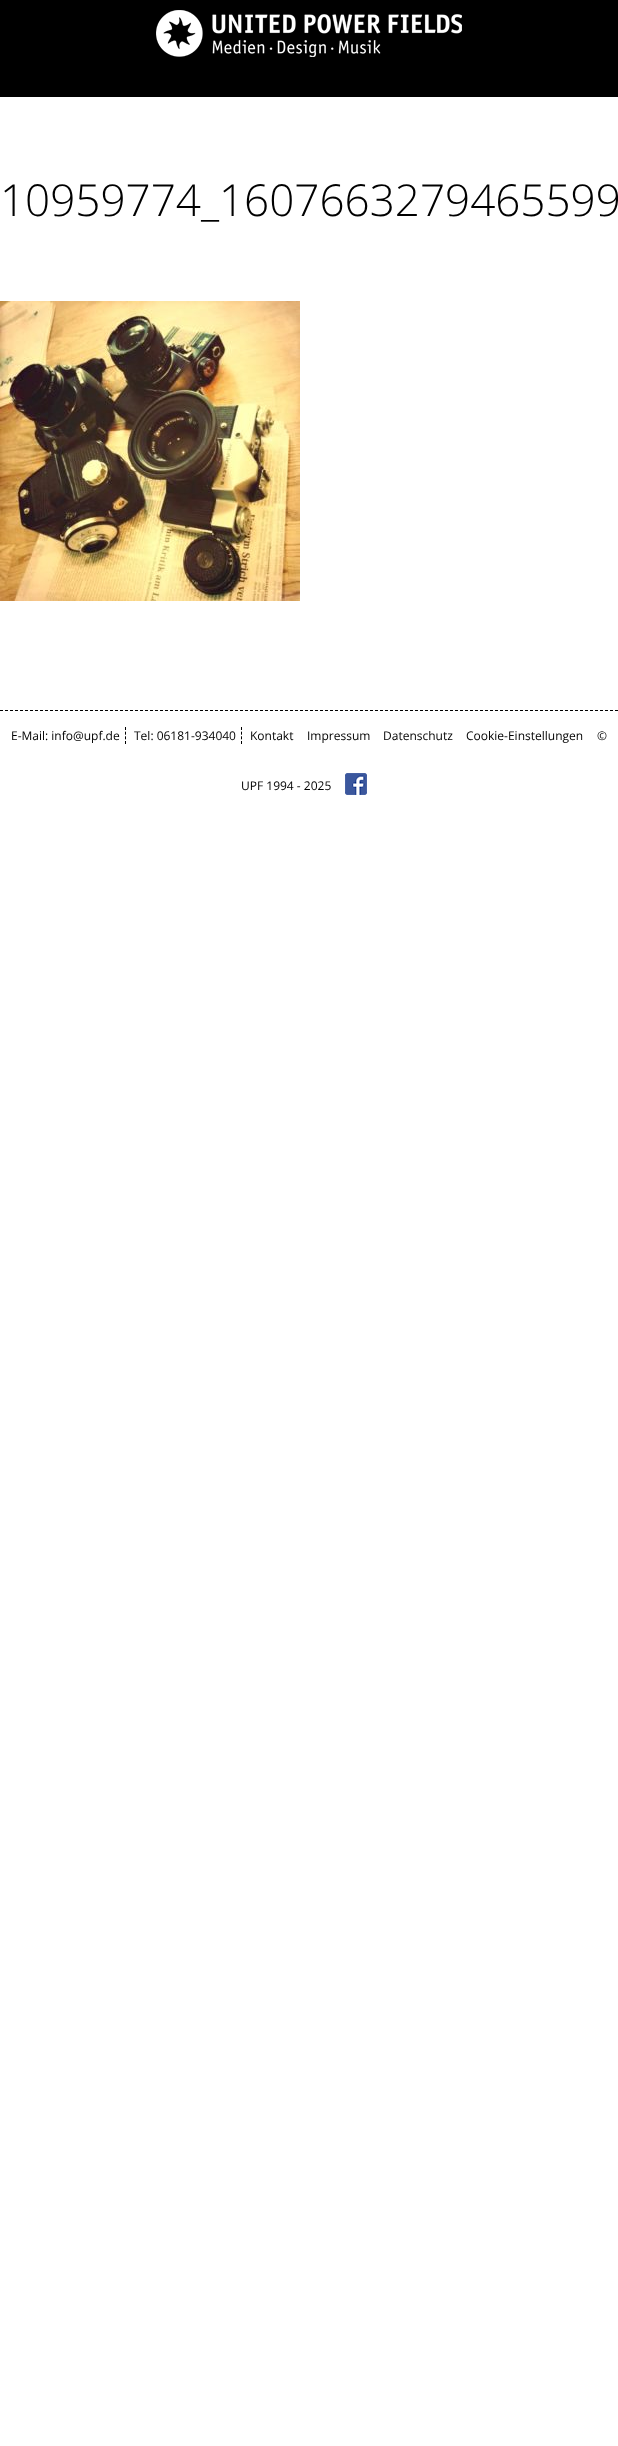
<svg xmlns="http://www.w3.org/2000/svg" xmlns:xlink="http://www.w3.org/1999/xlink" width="618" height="2446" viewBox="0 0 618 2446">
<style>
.cls-1{font:300 44px Open Sans;fill:#000000}
.cls-2{font:12px Open Sans;fill:#000000}
</style>
<rect width="100%" height="100%" fill="#ffffff"/>
<rect fill="#000000" x="0" y="0" width="618" height="97"/>
<image xlink:href="image0.png" x="156" y="10" width="306" height="47"/>
<image xlink:href="image1.png" x="0" y="301" width="300" height="300"/>
<path fill="none" stroke="#000000" stroke-dasharray="3 2" d="M0 710.5H618"/>
<path fill="none" stroke="#000000" stroke-dasharray="3 1.67" d="M125.5 727V744"/>
<path fill="none" stroke="#000000" stroke-dasharray="3 1.67" d="M241.5 727V744"/>
<image xlink:href="image2.png" x="345" y="773" width="22" height="22"/>
<text class="cls-1" x="0" y="216">10959774_1607663279465599</text>
<text class="cls-2" x="11" y="740">E-Mail: info@upf.de</text>
<text class="cls-2" x="134" y="740">Tel: 06181-934040</text>
<text class="cls-2" x="250" y="740">Kontakt</text>
<text class="cls-2" x="307" y="740">Impressum</text>
<text class="cls-2" x="383" y="740">Datenschutz</text>
<text class="cls-2" x="466" y="740">Cookie-Einstellungen</text>
<text class="cls-2" x="597" y="740">©</text>
<text class="cls-2" x="241" y="790">UPF 1994 - 2025</text>
</svg>
